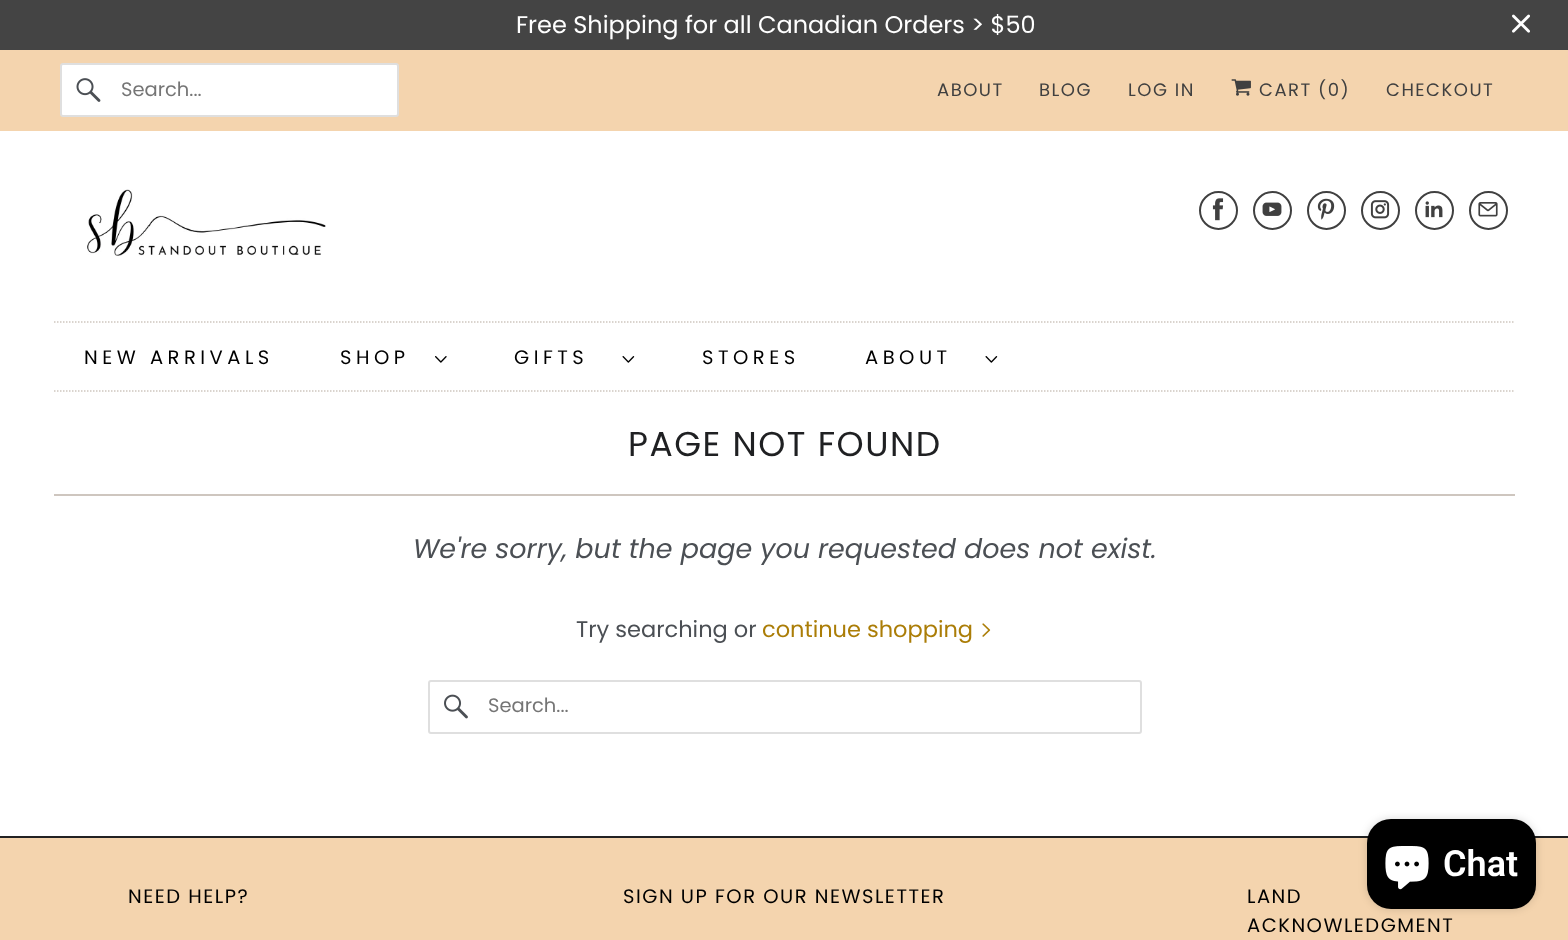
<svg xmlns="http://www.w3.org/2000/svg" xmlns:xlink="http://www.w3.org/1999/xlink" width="1568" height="940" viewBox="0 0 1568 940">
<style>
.cls-1{font:24px Poppins;fill:#ffffff}
.cls-2{font:19.5px Poppins;fill:#757575}
.cls-3{font:18px Poppins;letter-spacing:1.5px;fill:#404040}
.cls-4{font:19.5px Poppins;letter-spacing:4.5px;fill:#000000}
.cls-5{font:34.5px Poppins;letter-spacing:1.5px;fill:#1f2022}
.cls-6{font:italic 27px Poppins;fill:#4b4f54}
.cls-7{font:22.5px Poppins;fill:#4b4f54}
.cls-8{font:22.5px Poppins;fill:#ab7d07}
.cls-9{font:600 36px Roboto;fill:#ffffff}
.cls-10{font:19.5px Poppins;letter-spacing:1.5px;fill:#000000}
</style>
<rect width="100%" height="100%" fill="#ffffff"/>
<rect fill="#444444" x="0" y="0" width="1568" height="50"/>
<image xlink:href="image0.png" x="1512" y="14" width="18" height="19"/>
<rect fill="#f4d4ae" x="0" y="50" width="1568" height="81"/>
<rect fill="#ffffff" stroke="#dfdfdf" stroke-width="2" x="61" y="64" width="337" height="52" rx="2"/>
<image xlink:href="image1.png" x="76" y="78" width="25" height="24"/>
<image xlink:href="image2.png" x="1231" y="79" width="20" height="17"/>
<image xlink:href="image3.png" x="87" y="189" width="239" height="67"/>
<circle fill="none" stroke="#404040" stroke-width="2" cx="1218.5" cy="210.5" r="18.5"/>
<image xlink:href="image4.png" x="1212" y="198" width="12" height="23"/>
<circle fill="none" stroke="#404040" stroke-width="2" cx="1272.5" cy="210.5" r="18.5"/>
<image xlink:href="image5.png" x="1262" y="202" width="20" height="14"/>
<circle fill="none" stroke="#404040" stroke-width="2" cx="1326.5" cy="210.5" r="18.5"/>
<image xlink:href="image6.png" x="1317" y="198" width="18" height="22"/>
<circle fill="none" stroke="#404040" stroke-width="2" cx="1380.5" cy="210.5" r="18.5"/>
<image xlink:href="image7.png" x="1370" y="200" width="20" height="19"/>
<circle fill="none" stroke="#404040" stroke-width="2" cx="1434.5" cy="210.5" r="18.5"/>
<image xlink:href="image8.png" x="1425" y="201" width="18" height="17"/>
<circle fill="none" stroke="#404040" stroke-width="2" cx="1488.5" cy="210.5" r="18.5"/>
<image xlink:href="image9.png" x="1478" y="202" width="20" height="15"/>
<path fill="none" stroke="#cec6bf" stroke-width="1.5" stroke-dasharray="1.5 1.5" d="M54 322H1515"/>
<path fill="none" stroke="#cec6bf" stroke-width="1.5" stroke-dasharray="1.5 1.5" d="M54 391H1515"/>
<image xlink:href="image10.png" x="435" y="356" width="12" height="7"/>
<image xlink:href="image11.png" x="622" y="356" width="13" height="7"/>
<image xlink:href="image11.png" x="985" y="356" width="13" height="7"/>
<rect fill="#cec6bf" x="54" y="494" width="1461" height="2"/>
<image xlink:href="image12.png" x="982" y="623" width="9" height="14"/>
<rect fill="none" stroke="#dfdfdf" stroke-width="2" x="429" y="681" width="712" height="52" rx="2"/>
<image xlink:href="image13.png" x="444" y="694" width="24" height="25"/>
<rect fill="#f4d4ae" x="0" y="838" width="1568" height="102"/>
<rect fill="#222222" x="0" y="836" width="1568" height="2"/>
<rect fill="#000000" fill-opacity="0.15" filter="blur(4px)" x="1367" y="819" width="169" height="90" rx="24"/>
<rect fill="#000000" x="1367" y="819" width="169" height="90" rx="24"/>
<image xlink:href="image14.png" x="1385" y="846" width="44" height="44"/>
<text class="cls-1" x="516" y="33">Free Shipping for all Canadian Orders &gt; $50</text>
<text class="cls-2" x="121" y="96">Search...</text>
<text class="cls-3" x="937" y="96">ABOUT</text>
<text class="cls-3" x="1039" y="96">BLOG</text>
<text class="cls-3" x="1128" y="96">LOG IN</text>
<text class="cls-3" x="1259" y="96">CART (0)</text>
<text class="cls-3" x="1386" y="96">CHECKOUT</text>
<text class="cls-4" x="84" y="364">NEW ARRIVALS</text>
<text class="cls-4" x="340" y="364">SHOP</text>
<text class="cls-4" x="514" y="364">GIFTS</text>
<text class="cls-4" x="702" y="364">STORES</text>
<text class="cls-4" x="865" y="364">ABOUT</text>
<text class="cls-5" x="628" y="456">PAGE NOT FOUND</text>
<text class="cls-6" x="413" y="558">We're sorry, but the page you requested does not exist.</text>
<text class="cls-7" x="576" y="637">Try searching or</text>
<text class="cls-8" x="762" y="637">continue shopping</text>
<text class="cls-2" x="488" y="712">Search...</text>
<text class="cls-9" x="1443" y="876">Chat</text>
<text class="cls-10" x="128" y="903">NEED HELP?</text>
<text class="cls-10" x="623" y="903">SIGN UP FOR OUR NEWSLETTER</text>
<text class="cls-10"><tspan x="1247" y="903">LAND</tspan><tspan x="1247" y="932">ACKNOWLEDGMENT</tspan></text>
</svg>
